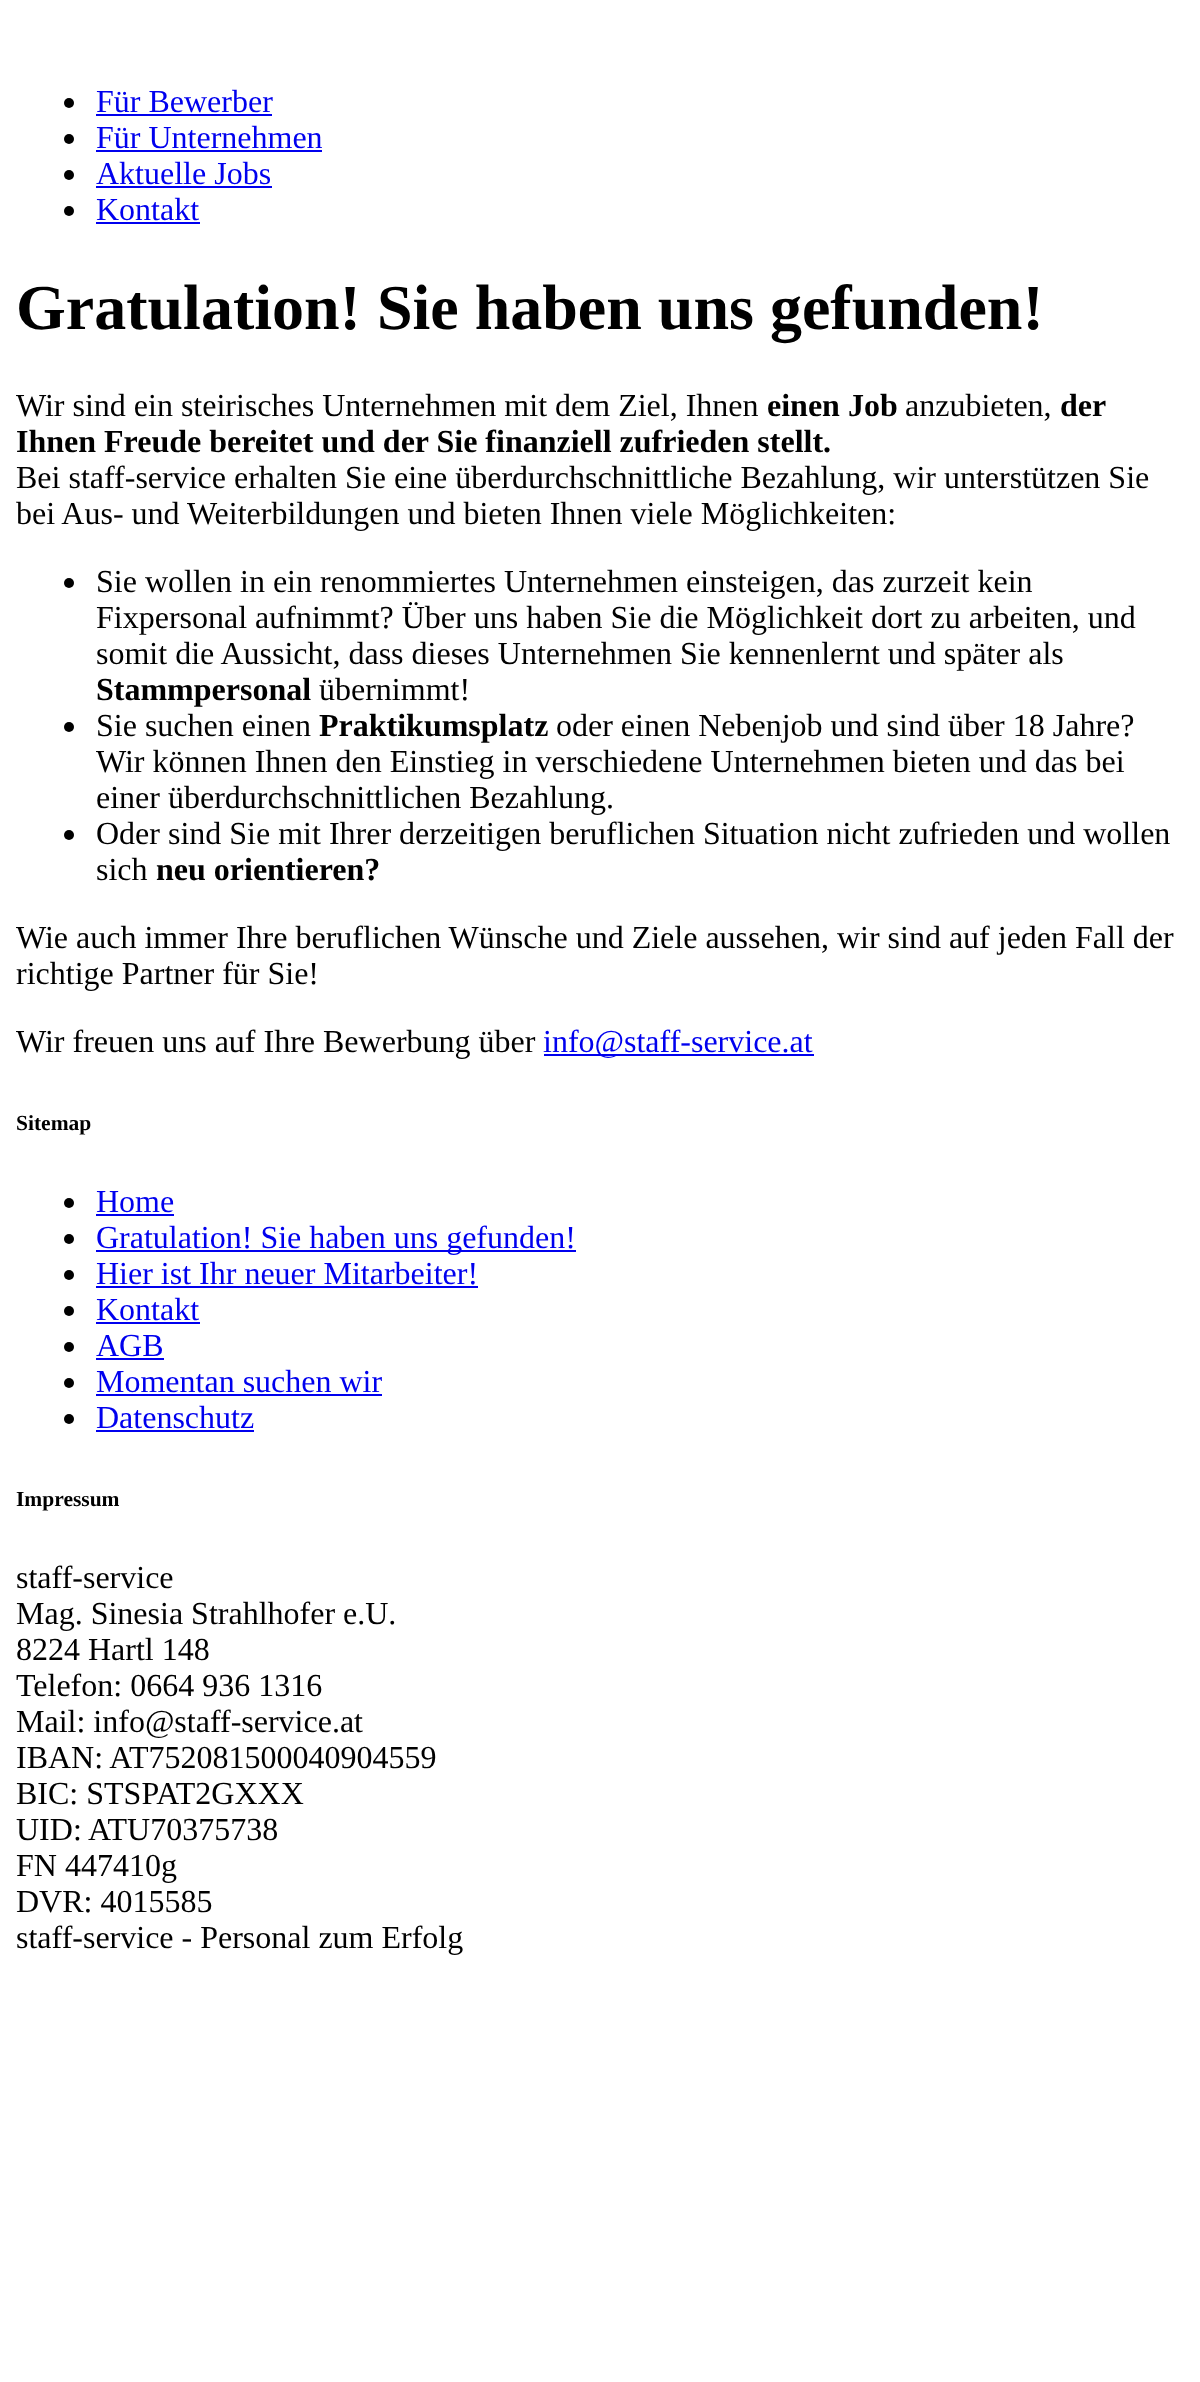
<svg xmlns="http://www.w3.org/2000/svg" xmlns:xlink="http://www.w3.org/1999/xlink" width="1200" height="2382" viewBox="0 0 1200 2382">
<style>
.cls-1{font:32px Liberation Serif;fill:#0000ee}
.cls-2{font:bold 64px Liberation Serif;fill:#000000}
.cls-3{font:32px Liberation Serif;fill:#000000}
.cls-4{font:bold 32px Liberation Serif;fill:#000000}
.cls-5{font:bold 21.5px Liberation Serif;fill:#000000}
</style>
<rect width="100%" height="100%" fill="#ffffff"/>
<circle fill="#000000" cx="69" cy="103" r="5"/>
<rect fill="#0000ee" x="96" y="114" width="176" height="2"/>
<circle fill="#000000" cx="69" cy="139" r="5"/>
<rect fill="#0000ee" x="96" y="150" width="226" height="2"/>
<circle fill="#000000" cx="69" cy="175" r="5"/>
<rect fill="#0000ee" x="96" y="186" width="176" height="2"/>
<circle fill="#000000" cx="69" cy="211" r="5"/>
<rect fill="#0000ee" x="96" y="222" width="104" height="2"/>
<circle fill="#000000" cx="69" cy="583" r="5"/>
<circle fill="#000000" cx="69" cy="727" r="5"/>
<circle fill="#000000" cx="69" cy="835" r="5"/>
<rect fill="#0000ee" x="544" y="1054" width="270" height="2"/>
<circle fill="#000000" cx="69" cy="1203" r="5"/>
<rect fill="#0000ee" x="96" y="1214" width="78" height="2"/>
<circle fill="#000000" cx="69" cy="1239" r="5"/>
<rect fill="#0000ee" x="96" y="1250" width="480" height="2"/>
<circle fill="#000000" cx="69" cy="1275" r="5"/>
<rect fill="#0000ee" x="96" y="1286" width="382" height="2"/>
<circle fill="#000000" cx="69" cy="1311" r="5"/>
<rect fill="#0000ee" x="96" y="1322" width="104" height="2"/>
<circle fill="#000000" cx="69" cy="1347" r="5"/>
<rect fill="#0000ee" x="96" y="1358" width="68" height="2"/>
<circle fill="#000000" cx="69" cy="1383" r="5"/>
<rect fill="#0000ee" x="96" y="1394" width="286" height="2"/>
<circle fill="#000000" cx="69" cy="1419" r="5"/>
<rect fill="#0000ee" x="96" y="1430" width="158" height="2"/>
<text class="cls-1"><tspan x="96" y="112">Für Bewerber</tspan><tspan x="96" y="148">Für Unternehmen</tspan><tspan x="96" y="184">Aktuelle Jobs</tspan><tspan x="96" y="220">Kontakt</tspan></text>
<text class="cls-2" x="16" y="329">Gratulation! Sie haben uns gefunden!</text>
<text class="cls-3" x="16" y="416">Wir sind ein steirisches Unternehmen mit dem Ziel, Ihnen</text>
<text class="cls-4" x="767" y="416">einen Job</text>
<text class="cls-3" x="905" y="416">anzubieten,</text>
<text class="cls-4" x="1060" y="416">der</text>
<text class="cls-4" x="16" y="452">Ihnen Freude bereitet und der Sie finanziell zufrieden stellt.</text>
<text class="cls-3"><tspan x="16" y="488">Bei staff-service erhalten Sie eine überdurchschnittliche Bezahlung, wir unterstützen Sie</tspan><tspan x="16" y="524">bei Aus- und Weiterbildungen und bieten Ihnen viele Möglichkeiten:</tspan></text>
<text class="cls-3"><tspan x="96" y="592">Sie wollen in ein renommiertes Unternehmen einsteigen, das zurzeit kein</tspan><tspan x="96" y="628">Fixpersonal aufnimmt? Über uns haben Sie die Möglichkeit dort zu arbeiten, und</tspan><tspan x="96" y="664">somit die Aussicht, dass dieses Unternehmen Sie kennenlernt und später als</tspan></text>
<text class="cls-4" x="96" y="700">Stammpersonal</text>
<text class="cls-3" x="319" y="700">übernimmt!</text>
<text class="cls-3" x="96" y="736">Sie suchen einen</text>
<text class="cls-4" x="319" y="736">Praktikumsplatz</text>
<text class="cls-3" x="556" y="736">oder einen Nebenjob und sind über 18 Jahre?</text>
<text class="cls-3"><tspan x="96" y="772">Wir können Ihnen den Einstieg in verschiedene Unternehmen bieten und das bei</tspan><tspan x="96" y="808">einer überdurchschnittlichen Bezahlung.</tspan><tspan x="96" y="844">Oder sind Sie mit Ihrer derzeitigen beruflichen Situation nicht zufrieden und wollen</tspan><tspan x="96" y="880">sich</tspan></text>
<text class="cls-4" x="156" y="880">neu orientieren?</text>
<text class="cls-3"><tspan x="16" y="948">Wie auch immer Ihre beruflichen Wünsche und Ziele aussehen, wir sind auf jeden Fall der</tspan><tspan x="16" y="984">richtige Partner für Sie!</tspan></text>
<text class="cls-3" x="16" y="1052">Wir freuen uns auf Ihre Bewerbung über</text>
<text class="cls-1" x="543" y="1052">info@staff-service.at</text>
<text class="cls-5" x="16" y="1130">Sitemap</text>
<text class="cls-1"><tspan x="96" y="1212">Home</tspan><tspan x="96" y="1248">Gratulation! Sie haben uns gefunden!</tspan><tspan x="96" y="1284">Hier ist Ihr neuer Mitarbeiter!</tspan><tspan x="96" y="1320">Kontakt</tspan><tspan x="96" y="1356">AGB</tspan><tspan x="96" y="1392">Momentan suchen wir</tspan><tspan x="96" y="1428">Datenschutz</tspan></text>
<text class="cls-5" x="16" y="1506">Impressum</text>
<text class="cls-3"><tspan x="16" y="1588">staff-service</tspan><tspan x="16" y="1624">Mag. Sinesia Strahlhofer e.U.</tspan><tspan x="16" y="1660">8224 Hartl 148</tspan><tspan x="16" y="1696">Telefon: 0664 936 1316</tspan><tspan x="16" y="1732">Mail: info@staff-service.at</tspan><tspan x="16" y="1768">IBAN: AT752081500040904559</tspan><tspan x="16" y="1804">BIC: STSPAT2GXXX</tspan><tspan x="16" y="1840">UID: ATU70375738</tspan><tspan x="16" y="1876">FN 447410g</tspan><tspan x="16" y="1912">DVR: 4015585</tspan><tspan x="16" y="1948">staff-service - Personal zum Erfolg</tspan></text>
</svg>
